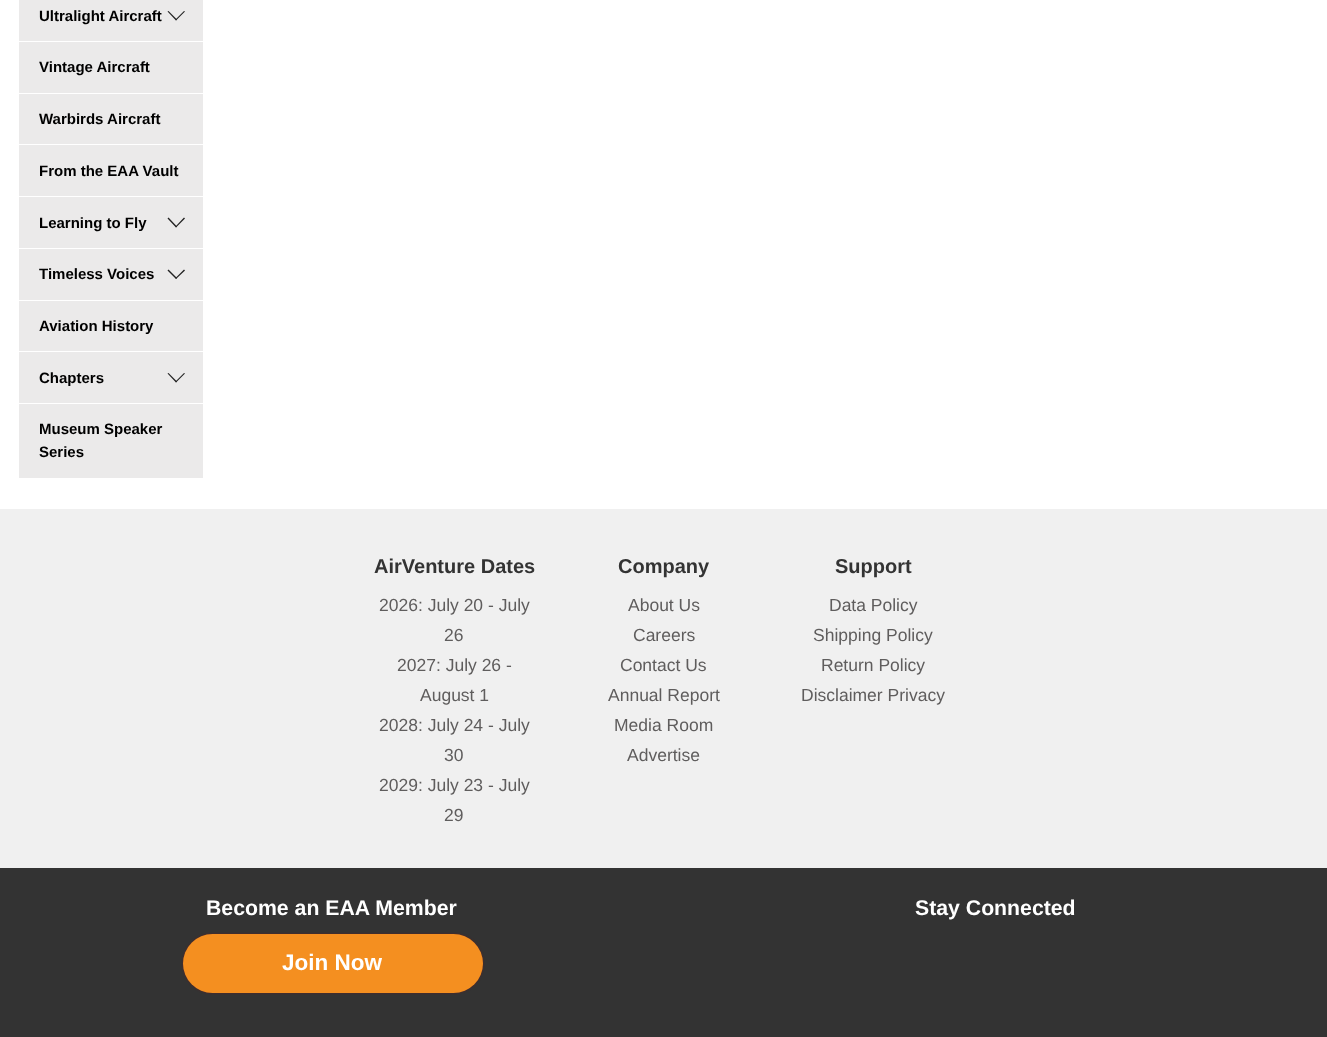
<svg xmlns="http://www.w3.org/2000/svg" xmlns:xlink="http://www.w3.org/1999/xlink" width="1327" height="1037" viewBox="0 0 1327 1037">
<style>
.cls-1{font:bold 15px Liberation Sans;fill:#000000}
.cls-2{font:bold 20px Liberation Sans;fill:#333333}
.cls-3{font:17.5px Liberation Sans;fill:#5f5d5d}
.cls-4{font:bold 21.25px Liberation Sans;fill:#ffffff}
.cls-5{font:bold 22.5px Liberation Sans;fill:#ffffff}
</style>
<rect width="100%" height="100%" fill="#ffffff"/>
<rect fill="#ebeaea" x="19" y="0" width="184" height="478"/>
<rect fill="#ffffff" x="19" y="41" width="184" height="1"/>
<path fill="#222222" d="M185 11.5L176 20.5L175.5 19.5L184 11Z"/>
<path fill="#222222" d="M177 19.5L176 20.5L167.5 11.5L168.5 11Z"/>
<rect fill="#ffffff" x="19" y="93" width="184" height="1"/>
<rect fill="#ffffff" x="19" y="144" width="184" height="1"/>
<rect fill="#ffffff" x="19" y="196" width="184" height="1"/>
<rect fill="#ffffff" x="19" y="248" width="184" height="1"/>
<path fill="#222222" d="M185 218.5L176 227.5L175.5 226.5L184 217.5Z"/>
<path fill="#222222" d="M177 226.5L176 227.5L167.5 218.5L168.5 217.5Z"/>
<rect fill="#ffffff" x="19" y="300" width="184" height="1"/>
<path fill="#222222" d="M185 270.5L176 279L175.5 278L184 269.5Z"/>
<path fill="#222222" d="M177 278L176 279L167.5 270.5L168.5 269.5Z"/>
<rect fill="#ffffff" x="19" y="351" width="184" height="1"/>
<rect fill="#ffffff" x="19" y="403" width="184" height="1"/>
<path fill="#222222" d="M185 373.5L176 382.5L175.5 381.5L184 373Z"/>
<path fill="#222222" d="M177 381.5L176 382.5L167.5 373.5L168.5 373Z"/>
<rect fill="#f0f0f0" x="0" y="509" width="1327" height="359"/>
<rect fill="#333333" x="0" y="868" width="1327" height="169"/>
<rect fill="#960a0a" fill-opacity="0.4" filter="blur(1px)" x="183" y="934" width="300" height="59" rx="29.5"/>
<rect fill="#f48f20" x="183" y="934" width="300" height="59" rx="29.5"/>
<text class="cls-1" x="39" y="21">Ultralight Aircraft</text>
<text class="cls-1" x="39" y="72">Vintage Aircraft</text>
<text class="cls-1" x="39" y="124">Warbirds Aircraft</text>
<text class="cls-1" x="39" y="176">From the EAA Vault</text>
<text class="cls-1" x="39" y="228">Learning to Fly</text>
<text class="cls-1" x="39" y="279">Timeless Voices</text>
<text class="cls-1" x="39" y="331">Aviation History</text>
<text class="cls-1" x="39" y="383">Chapters</text>
<text class="cls-1"><tspan x="39" y="434">Museum Speaker</tspan><tspan x="39" y="457">Series</tspan></text>
<text class="cls-2" x="374" y="573">AirVenture Dates</text>
<text class="cls-3" x="379" y="611">2026: July 20 - July</text>
<text class="cls-3" x="444" y="641">26</text>
<text class="cls-3" x="397" y="671">2027: July 26 -</text>
<text class="cls-3" x="420" y="701">August 1</text>
<text class="cls-3" x="379" y="731">2028: July 24 - July</text>
<text class="cls-3" x="444" y="761">30</text>
<text class="cls-3" x="379" y="791">2029: July 23 - July</text>
<text class="cls-3" x="444" y="821">29</text>
<text class="cls-2" x="618" y="573">Company</text>
<text class="cls-3" x="628" y="611">About Us</text>
<text class="cls-3" x="633" y="641">Careers</text>
<text class="cls-3" x="620" y="671">Contact Us</text>
<text class="cls-3" x="608" y="701">Annual Report</text>
<text class="cls-3" x="614" y="731">Media Room</text>
<text class="cls-3" x="627" y="761">Advertise</text>
<text class="cls-2" x="835" y="573">Support</text>
<text class="cls-3" x="829" y="611">Data Policy</text>
<text class="cls-3" x="813" y="641">Shipping Policy</text>
<text class="cls-3" x="821" y="671">Return Policy</text>
<text class="cls-3" x="801" y="701">Disclaimer Privacy</text>
<text class="cls-4" x="206" y="915">Become an EAA Member</text>
<text class="cls-5" x="282" y="970">Join Now</text>
<text class="cls-4" x="915" y="915">Stay Connected</text>
</svg>
